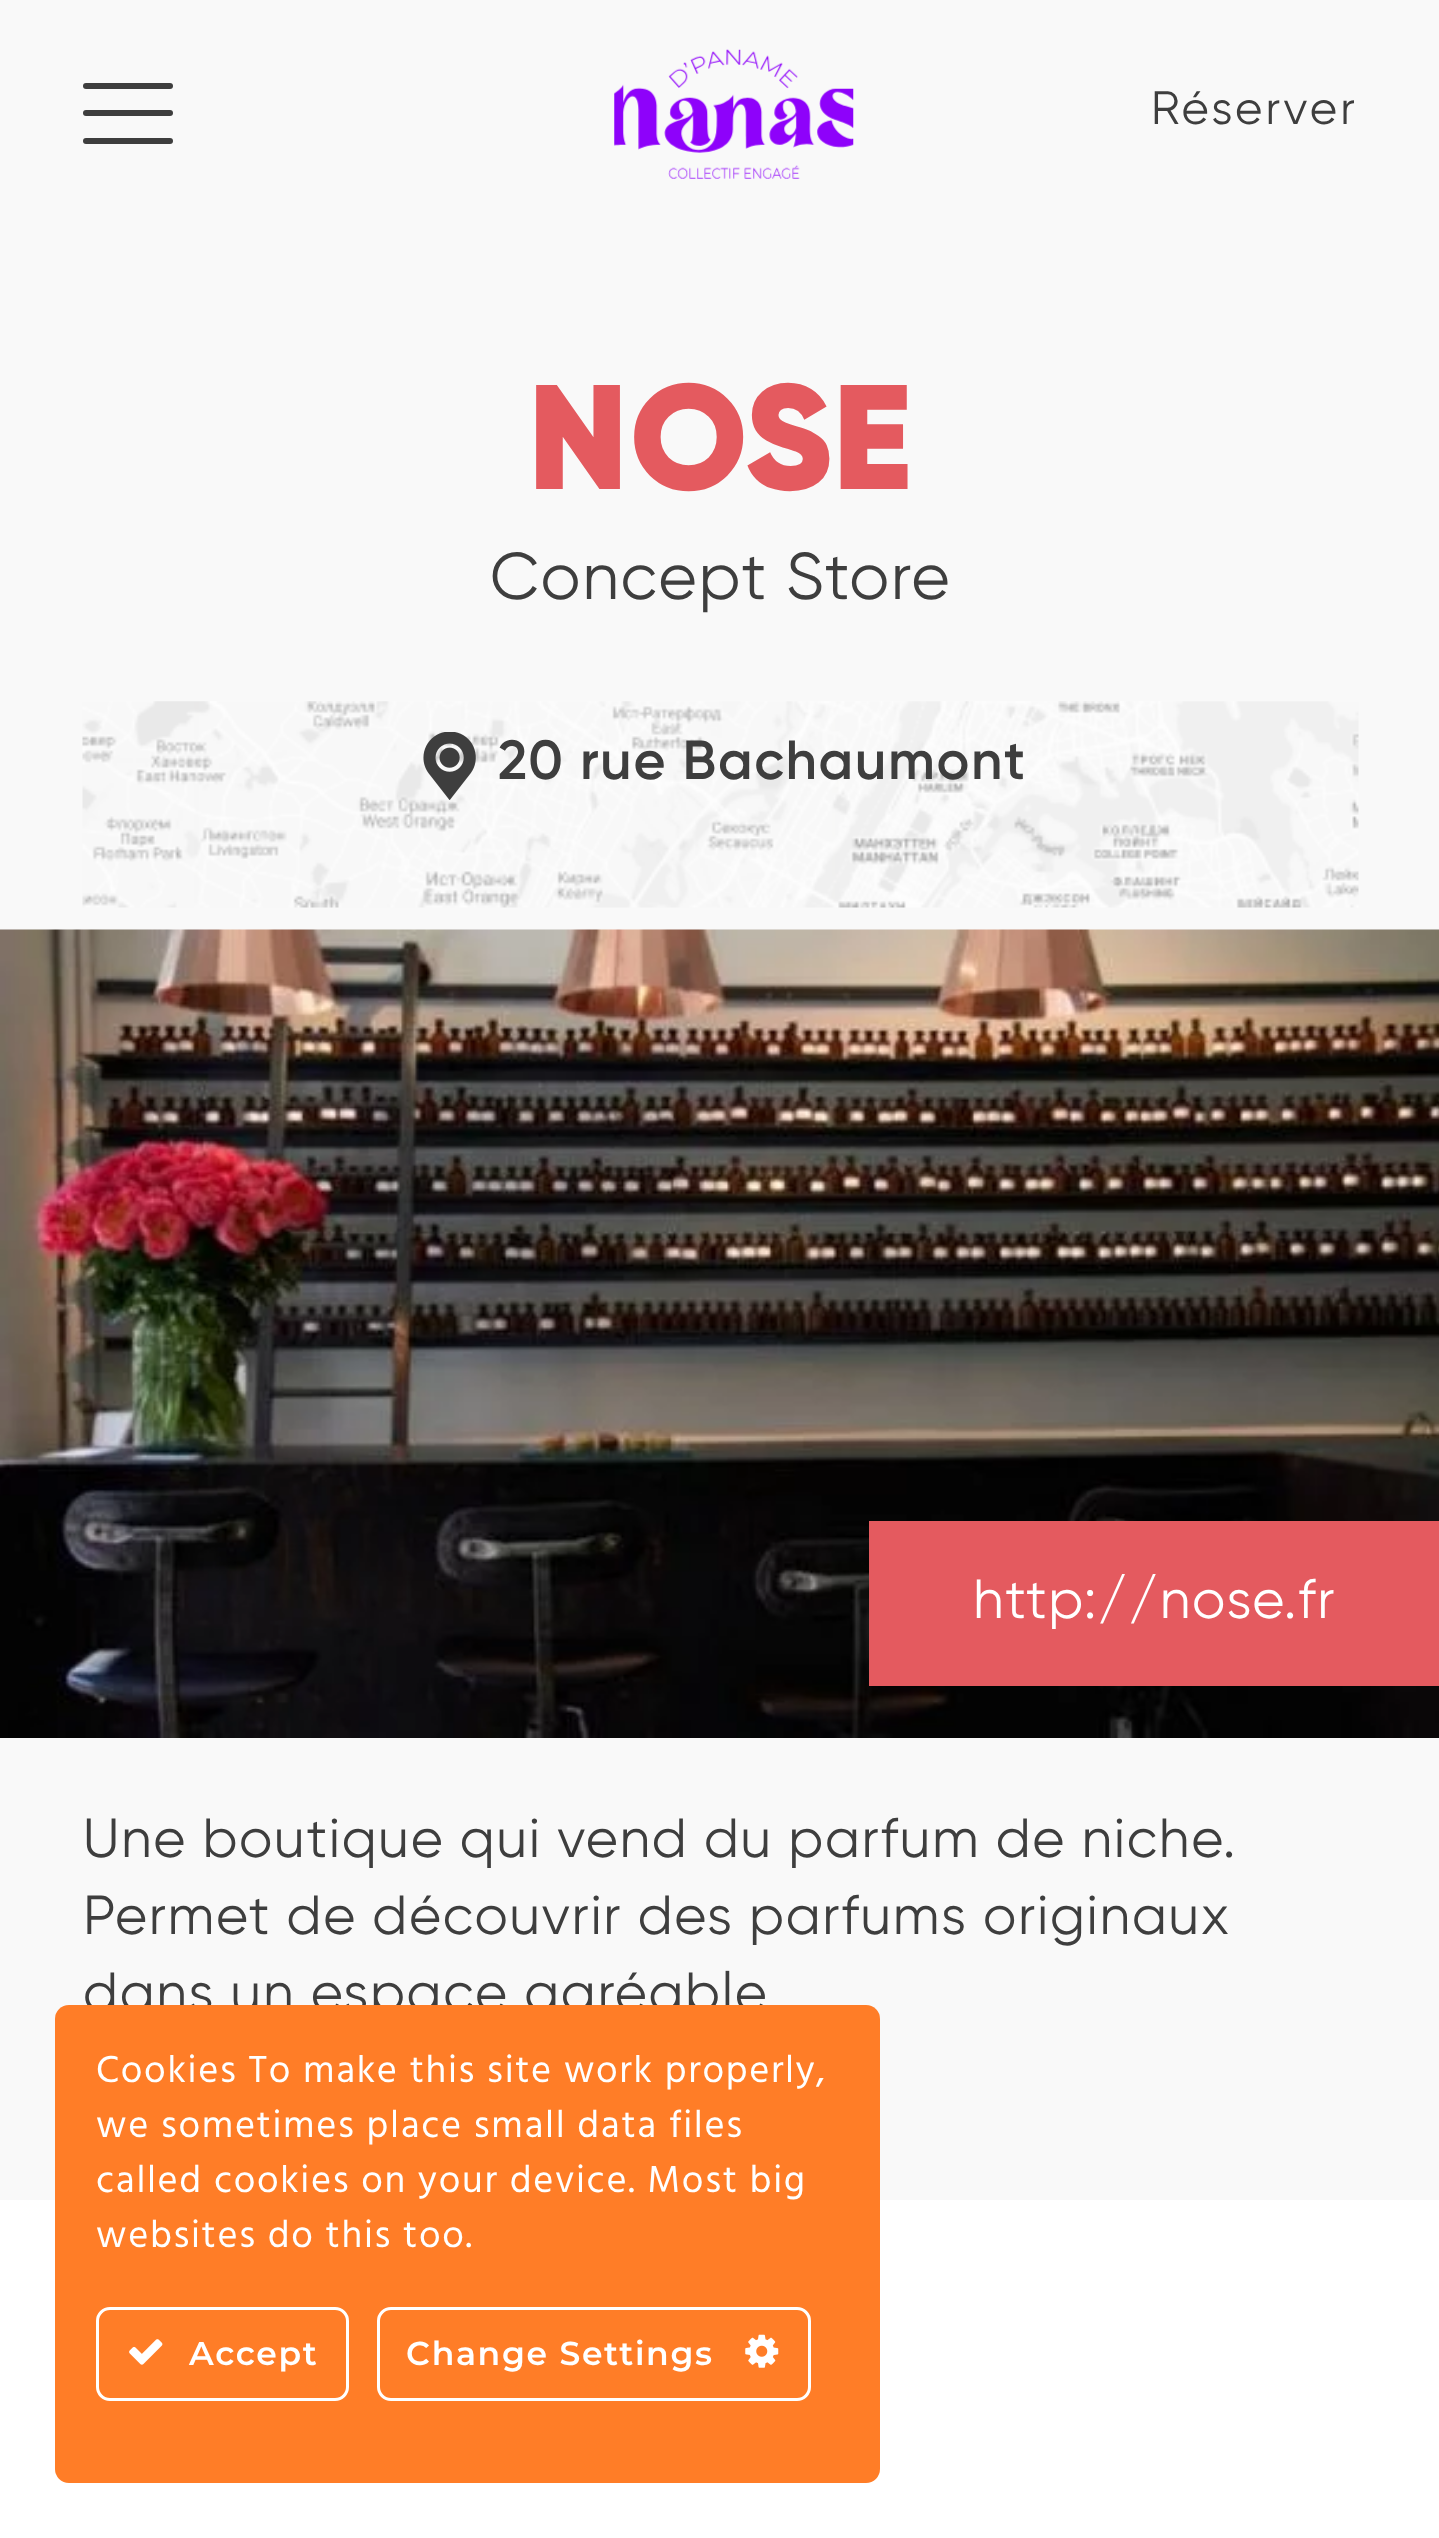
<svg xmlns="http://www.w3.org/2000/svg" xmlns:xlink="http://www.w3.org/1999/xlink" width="1439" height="2538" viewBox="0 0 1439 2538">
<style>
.cls-1{font:46.75px Gilroy;letter-spacing:3.25px;fill:#3e3e3e}
.cls-2{font:900 148.5px Gilroy;letter-spacing:1.65px;fill:#e45a5f}
.cls-3{font:66px Gilroy;letter-spacing:1.65px;fill:#3e3e3e}
.cls-4{font:600 55px Gilroy;letter-spacing:1.65px;fill:#3e3e3e}
.cls-5{font:55px Gilroy;letter-spacing:1.65px;fill:#ffffff}
.cls-6{font:55px Gilroy;letter-spacing:1.65px;fill:#3e3e3e}
.cls-7{font:38.5px Hind;letter-spacing:1.65px;fill:#ffffff}
.cls-8{font:600 33px Montserrat;letter-spacing:1.65px;fill:#ffffff}
</style>
<rect width="100%" height="100%" fill="#ffffff"/>
<rect fill="#f9f9f9" x="0" y="0" width="1439" height="2200"/>
<rect fill="#3e3e3e" x="83" y="83" width="90" height="6" rx="3"/>
<rect fill="#3e3e3e" x="83" y="110" width="90" height="6" rx="3"/>
<rect fill="#3e3e3e" x="83" y="138" width="90" height="6" rx="3"/>
<image xlink:href="image0.png" x="614" y="49" width="240" height="130"/>
<image xlink:href="image1.png" x="82" y="701" width="1277" height="207"/>
<image xlink:href="image2.png" x="423" y="732" width="53" height="68"/>
<image xlink:href="image3.png" x="0" y="929" width="1439" height="809"/>
<rect fill="#e45a5f" x="869" y="1521" width="570" height="165"/>
<text class="cls-1" x="1151" y="124">Réserver</text>
<text class="cls-2" x="528" y="489">NOSE</text>
<text class="cls-3" x="490" y="599">Concept Store</text>
<text class="cls-4" x="498" y="779">20 rue Bachaumont</text>
<text class="cls-5" x="973" y="1618">http://nose.fr</text>
<text class="cls-6"><tspan x="83" y="1857">Une boutique qui vend du parfum de niche.</tspan><tspan x="83" y="1934">Permet de découvrir des parfums originaux</tspan><tspan x="83" y="2011">dans un espace agréable</tspan></text>
<rect fill="#ff7d27" x="55" y="2005" width="825" height="478" rx="14"/>
<text class="cls-7"><tspan x="96" y="2082">Cookies To make this site work properly,</tspan><tspan x="96" y="2137">we sometimes place small data files</tspan><tspan x="96" y="2192">called cookies on your device. Most big</tspan><tspan x="96" y="2247">websites do this too.</tspan></text>
<rect fill="none" stroke="#ffffff" stroke-width="3" x="97.5" y="2308.5" width="250" height="91" rx="12.5"/>
<image xlink:href="image4.png" x="129" y="2339" width="34" height="26"/>
<text class="cls-8" x="189" y="2365">Accept</text>
<rect fill="none" stroke="#ffffff" stroke-width="3" x="378.5" y="2308.5" width="431" height="91" rx="12.5"/>
<text class="cls-8" x="406" y="2365">Change Settings</text>
<image xlink:href="image5.png" x="745" y="2334" width="34" height="34"/>
</svg>
